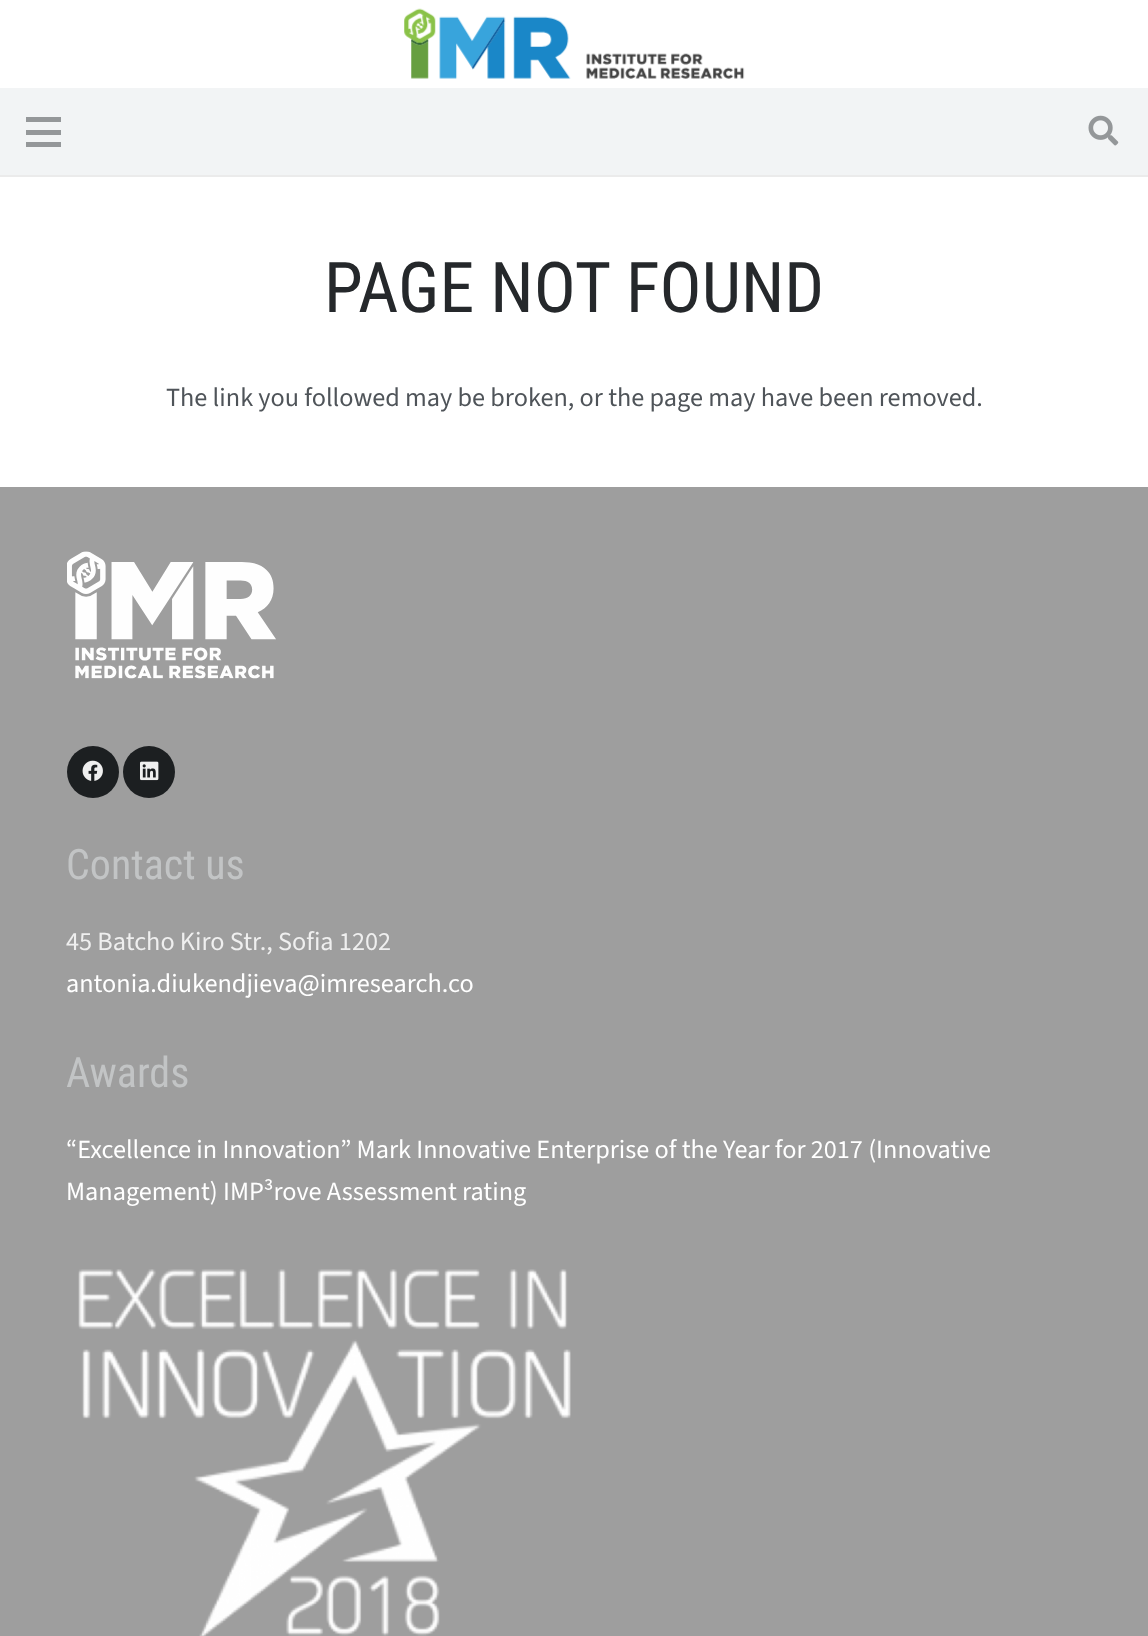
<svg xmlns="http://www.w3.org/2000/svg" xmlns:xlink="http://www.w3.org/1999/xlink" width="1148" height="1636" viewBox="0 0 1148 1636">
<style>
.cls-1{font:70px Roboto Condensed;fill:#25282b}
.cls-2{font:26.25px 'Source Sans 3';fill:#4f5459}
.cls-3{font:42px Roboto Condensed;fill:#c2c4c5}
.cls-4{font:26.25px 'Source Sans 3';fill:#efefef}
.cls-5{font:26.25px 'Source Sans 3';fill:#ffffff}
</style>
<rect width="100%" height="100%" fill="#ffffff"/>
<image xlink:href="image0.png" x="404" y="8" width="341" height="71"/>
<rect fill="#ebebeb" x="0" y="175" width="1148" height="2"/>
<rect fill="#f2f4f5" x="0" y="88" width="1148" height="87"/>
<rect fill="#949799" x="26" y="130" width="35" height="5"/>
<rect fill="#949799" x="26" y="117" width="35" height="5"/>
<rect fill="#949799" x="26" y="142" width="35" height="5"/>
<image xlink:href="image1.png" x="1088" y="115" width="31" height="31"/>
<rect fill="#9e9e9e" x="0" y="487" width="1148" height="1149"/>
<image xlink:href="image2.png" x="67" y="551" width="209" height="128"/>
<circle fill="#1c1f21" cx="93" cy="772" r="26"/>
<image xlink:href="image3.png" x="82" y="760" width="21" height="21"/>
<circle fill="#1c1f21" cx="149" cy="772" r="26"/>
<image xlink:href="image4.png" x="140" y="761" width="19" height="20"/>
<image xlink:href="image5.png" x="78" y="1269" width="493" height="367"/>
<text class="cls-1" x="324" y="312">PAGE NOT FOUND</text>
<text class="cls-2" x="166" y="406">The link you followed may be broken, or the page may have been removed.</text>
<text class="cls-3" x="66" y="879">Contact us</text>
<text class="cls-4" x="66" y="950">45 Batcho Kiro Str., Sofia 1202</text>
<text class="cls-5" x="66" y="992">antonia.diukendjieva@imresearch.co</text>
<text class="cls-3" x="66" y="1087">Awards</text>
<text class="cls-5"><tspan x="66" y="1158">“Excellence in Innovation” Mark Innovative Enterprise of the Year for 2017 (Innovative</tspan><tspan x="66" y="1200">Management) IMP³rove Assessment rating</tspan></text>
</svg>
